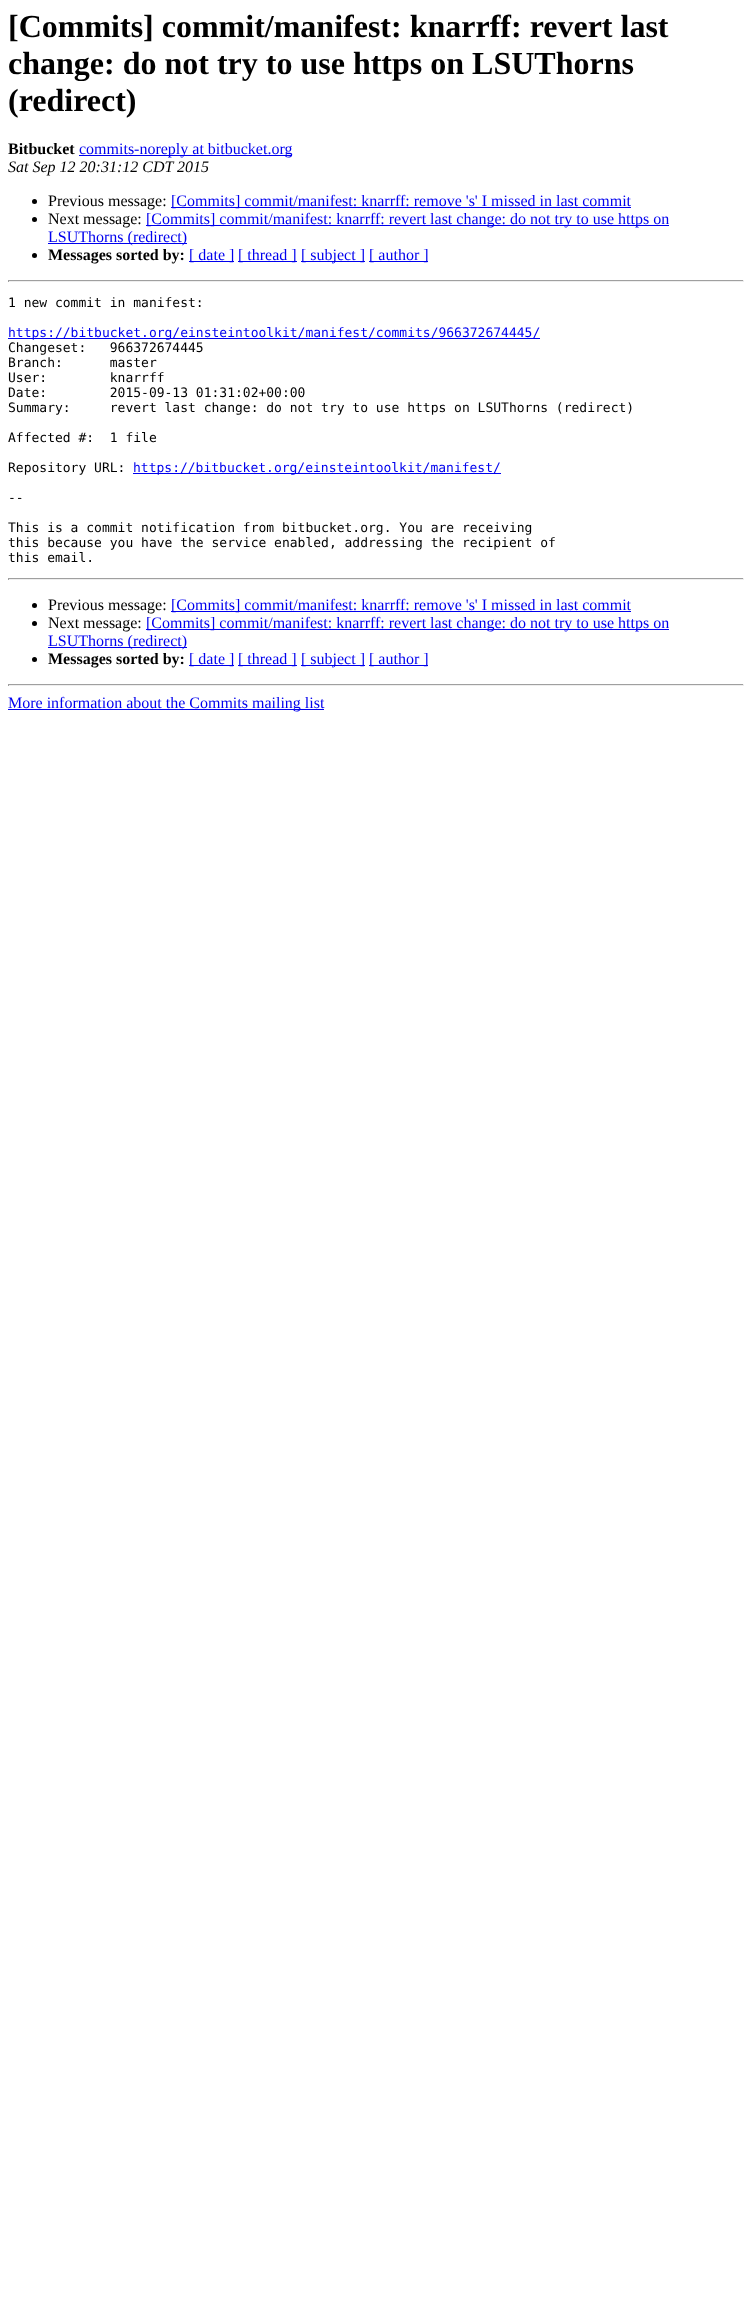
<svg xmlns="http://www.w3.org/2000/svg" xmlns:xlink="http://www.w3.org/1999/xlink" width="752" height="2323" viewBox="0 0 752 2323">
<style>
.cls-1{font:bold 32px Liberation Serif;fill:#000000}
.cls-2{font:bold 16px Liberation Serif;fill:#000000}
.cls-3{font:16px Liberation Serif;fill:#0000ee}
.cls-4{font:italic 16px Liberation Serif;fill:#000000}
.cls-5{font:16px Liberation Serif;fill:#000000}
.cls-6{font:13px DejaVu Sans Mono;fill:#000000}
.cls-7{font:13px DejaVu Sans Mono;fill:#0000ee}
</style>
<rect width="100%" height="100%" fill="#ffffff"/>
<rect fill="#0000ee" x="79" y="155" width="213" height="1"/>
<circle fill="#000000" cx="34.5" cy="201.5" r="2.5"/>
<rect fill="#0000ee" x="171" y="207" width="460" height="1"/>
<circle fill="#000000" cx="34.5" cy="219.5" r="2.5"/>
<rect fill="#0000ee" x="146" y="225" width="523" height="1"/>
<rect fill="#0000ee" x="48" y="243" width="139" height="1"/>
<circle fill="#000000" cx="34.5" cy="255.5" r="2.5"/>
<rect fill="#0000ee" x="189" y="261" width="45" height="1"/>
<rect fill="#0000ee" x="238" y="261" width="59" height="1"/>
<rect fill="#0000ee" x="301" y="261" width="64" height="1"/>
<rect fill="#0000ee" x="369" y="261" width="59" height="1"/>
<rect fill="#9f9f9f" x="8" y="280" width="736" height="1"/>
<rect fill="#eeeeee" x="743" y="280" width="1" height="2"/>
<rect fill="#eeeeee" x="8" y="281" width="736" height="1"/>
<rect fill="#9f9f9f" x="8" y="280" width="1" height="2"/>
<rect fill="#0000ee" x="8" y="338" width="532" height="1"/>
<rect fill="#0000ee" x="133" y="473" width="368" height="1"/>
<rect fill="#9f9f9f" x="8" y="578" width="736" height="1"/>
<rect fill="#eeeeee" x="743" y="578" width="1" height="2"/>
<rect fill="#eeeeee" x="8" y="579" width="736" height="1"/>
<rect fill="#9f9f9f" x="8" y="578" width="1" height="2"/>
<circle fill="#000000" cx="34.5" cy="605.5" r="2.5"/>
<rect fill="#0000ee" x="171" y="611" width="460" height="1"/>
<circle fill="#000000" cx="34.5" cy="623.5" r="2.5"/>
<rect fill="#0000ee" x="146" y="629" width="523" height="1"/>
<rect fill="#0000ee" x="48" y="647" width="139" height="1"/>
<circle fill="#000000" cx="34.5" cy="659.5" r="2.5"/>
<rect fill="#0000ee" x="189" y="665" width="45" height="1"/>
<rect fill="#0000ee" x="238" y="665" width="59" height="1"/>
<rect fill="#0000ee" x="301" y="665" width="64" height="1"/>
<rect fill="#0000ee" x="369" y="665" width="59" height="1"/>
<rect fill="#9f9f9f" x="8" y="684" width="736" height="1"/>
<rect fill="#eeeeee" x="743" y="684" width="1" height="2"/>
<rect fill="#eeeeee" x="8" y="685" width="736" height="1"/>
<rect fill="#9f9f9f" x="8" y="684" width="1" height="2"/>
<rect fill="#0000ee" x="8" y="709" width="316" height="1"/>
<text class="cls-1"><tspan x="8" y="37">[Commits] commit/manifest: knarrff: revert last</tspan><tspan x="8" y="74">change: do not try to use https on LSUThorns</tspan><tspan x="8" y="111">(redirect)</tspan></text>
<text class="cls-2" x="8" y="154">Bitbucket</text>
<text class="cls-3" x="79" y="154">commits-noreply at bitbucket.org</text>
<text class="cls-4" x="8" y="172">Sat Sep 12 20:31:12 CDT 2015</text>
<text class="cls-5" x="48" y="206">Previous message:</text>
<text class="cls-3" x="171" y="206">[Commits] commit/manifest: knarrff: remove 's' I missed in last commit</text>
<text class="cls-5" x="48" y="224">Next message:</text>
<text class="cls-3" x="146" y="224">[Commits] commit/manifest: knarrff: revert last change: do not try to use https on</text>
<text class="cls-3" x="48" y="242">LSUThorns (redirect)</text>
<text class="cls-2" x="48" y="260">Messages sorted by:</text>
<text class="cls-3" x="189" y="260">[ date ]</text>
<text class="cls-3" x="238" y="260">[ thread ]</text>
<text class="cls-3" x="301" y="260">[ subject ]</text>
<text class="cls-3" x="369" y="260">[ author ]</text>
<text class="cls-6" x="8" y="307">1 new commit in manifest:</text>
<text class="cls-7" x="8" y="337">https://bitbucket.org/einsteintoolkit/manifest/commits/966372674445/</text>
<text class="cls-6" xml:space="preserve"><tspan x="8" y="352">Changeset:   966372674445</tspan><tspan x="8" y="367">Branch:      master</tspan><tspan x="8" y="382">User:        knarrff</tspan><tspan x="8" y="397">Date:        2015-09-13 01:31:02+00:00</tspan><tspan x="8" y="412">Summary:     revert last change: do not try to use https on LSUThorns (redirect)</tspan></text>
<text class="cls-6" xml:space="preserve" x="8" y="442">Affected #:  1 file</text>
<text class="cls-6" x="8" y="472">Repository URL:</text>
<text class="cls-7" x="133" y="472">https://bitbucket.org/einsteintoolkit/manifest/</text>
<text class="cls-6" x="8" y="502">--</text>
<text class="cls-6"><tspan x="8" y="532">This is a commit notification from bitbucket.org. You are receiving</tspan><tspan x="8" y="547">this because you have the service enabled, addressing the recipient of</tspan><tspan x="8" y="562">this email.</tspan></text>
<text class="cls-5" x="48" y="610">Previous message:</text>
<text class="cls-3" x="171" y="610">[Commits] commit/manifest: knarrff: remove 's' I missed in last commit</text>
<text class="cls-5" x="48" y="628">Next message:</text>
<text class="cls-3" x="146" y="628">[Commits] commit/manifest: knarrff: revert last change: do not try to use https on</text>
<text class="cls-3" x="48" y="646">LSUThorns (redirect)</text>
<text class="cls-2" x="48" y="664">Messages sorted by:</text>
<text class="cls-3" x="189" y="664">[ date ]</text>
<text class="cls-3" x="238" y="664">[ thread ]</text>
<text class="cls-3" x="301" y="664">[ subject ]</text>
<text class="cls-3" x="369" y="664">[ author ]</text>
<text class="cls-3" x="8" y="708">More information about the Commits mailing list</text>
</svg>
